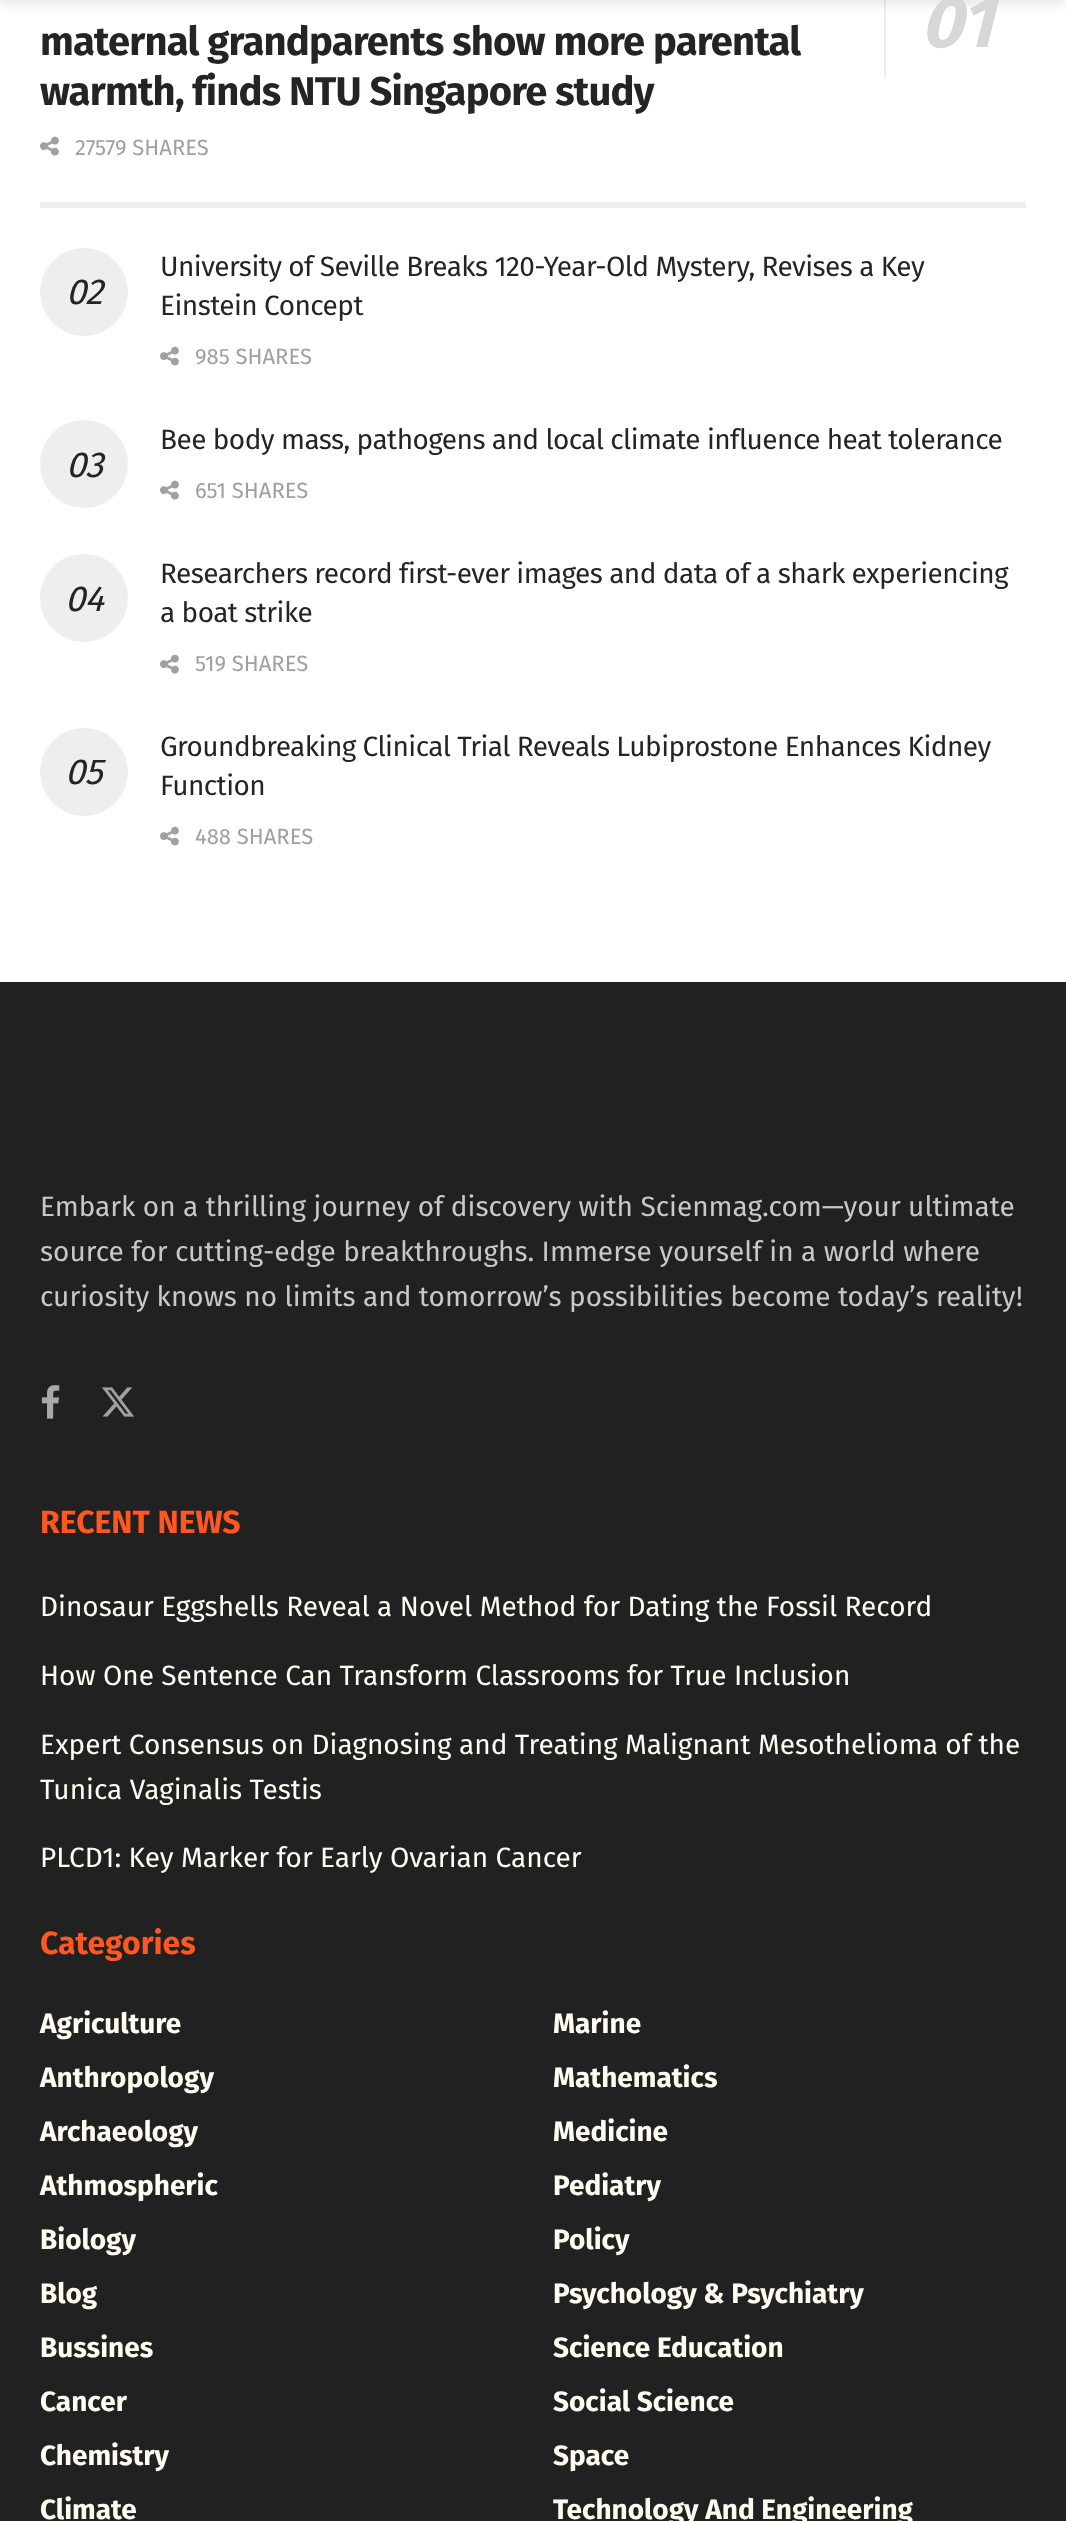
<svg xmlns="http://www.w3.org/2000/svg" xmlns:xlink="http://www.w3.org/1999/xlink" width="1066" height="2521" viewBox="0 0 1066 2521">
<style>
.cls-1{font:bold 40px Fira Sans;letter-spacing:-0.8px;fill:#252422}
.cls-2{font:italic bold 72px Fira Sans;letter-spacing:-0.8px;fill:#d7d7d7}
.cls-3{font:22px Fira Sans;fill:#a0a0a0}
.cls-4{font:28px Fira Sans;letter-spacing:-0.55px;fill:#252422}
.cls-5{font:italic 36px Fira Sans;letter-spacing:-0.55px;fill:#252422}
.cls-6{font:28px Fira Sans;fill:#c8c8c8}
.cls-7{font:bold 32px Fira Sans;fill:#ff5722}
.cls-8{font:28px Fira Sans;fill:#fffcf2}
.cls-9{font:bold 28px Fira Sans;fill:#fffcf2}
</style>
<rect width="100%" height="100%" fill="#ffffff"/>
<rect fill="#eeeeee" x="884" y="0" width="2" height="78"/>
<rect fill="#000000" fill-opacity="0.1" filter="blur(6px)" x="0" y="-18" width="1066" height="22"/>
<rect fill="#eeeeee" x="40" y="202" width="986" height="6"/>
<image xlink:href="image0.png" x="40" y="136" width="19" height="20"/>
<circle fill="#eeeeee" cx="84" cy="292" r="44"/>
<image xlink:href="image0.png" x="160" y="346" width="19" height="20"/>
<circle fill="#eeeeee" cx="84" cy="464" r="44"/>
<image xlink:href="image0.png" x="160" y="480" width="19" height="20"/>
<circle fill="#eeeeee" cx="84" cy="598" r="44"/>
<image xlink:href="image0.png" x="160" y="654" width="19" height="20"/>
<circle fill="#eeeeee" cx="84" cy="772" r="44"/>
<image xlink:href="image0.png" x="160" y="826" width="19" height="20"/>
<rect fill="#212121" x="0" y="982" width="1066" height="1539"/>
<image xlink:href="image1.png" x="41" y="1385" width="19" height="34"/>
<image xlink:href="image2.png" x="102" y="1387" width="32" height="30"/>
<text class="cls-1" x="40" y="55">maternal grandparents show more parental</text>
<text class="cls-2" x="920" y="47">01</text>
<text class="cls-1" x="40" y="105">warmth, finds NTU Singapore study</text>
<text class="cls-3" x="75" y="155">27579 SHARES</text>
<text class="cls-4" x="160" y="276">University of Seville Breaks 120-Year-Old Mystery, Revises a Key</text>
<text class="cls-5" x="66" y="304">02</text>
<text class="cls-4" x="160" y="315">Einstein Concept</text>
<text class="cls-3" x="195" y="364">985 SHARES</text>
<text class="cls-4" x="160" y="449">Bee body mass, pathogens and local climate influence heat tolerance</text>
<text class="cls-5" x="66" y="477">03</text>
<text class="cls-3" x="195" y="498">651 SHARES</text>
<text class="cls-4" x="160" y="583">Researchers record first-ever images and data of a shark experiencing</text>
<text class="cls-5" x="65" y="611">04</text>
<text class="cls-4" x="160" y="622">a boat strike</text>
<text class="cls-3" x="195" y="671">519 SHARES</text>
<text class="cls-4" x="160" y="756">Groundbreaking Clinical Trial Reveals Lubiprostone Enhances Kidney</text>
<text class="cls-5" x="65" y="784">05</text>
<text class="cls-4" x="160" y="795">Function</text>
<text class="cls-3" x="195" y="844">488 SHARES</text>
<text class="cls-6"><tspan x="40" y="1216">Embark on a thrilling journey of discovery with Scienmag.com—your ultimate</tspan><tspan x="40" y="1261">source for cutting-edge breakthroughs. Immerse yourself in a world where</tspan><tspan x="40" y="1306">curiosity knows no limits and tomorrow’s possibilities become today’s reality!</tspan></text>
<text class="cls-7" x="40" y="1533">RECENT NEWS</text>
<text class="cls-8" x="40" y="1616">Dinosaur Eggshells Reveal a Novel Method for Dating the Fossil Record</text>
<text class="cls-8" x="40" y="1685">How One Sentence Can Transform Classrooms for True Inclusion</text>
<text class="cls-8"><tspan x="40" y="1754">Expert Consensus on Diagnosing and Treating Malignant Mesothelioma of the</tspan><tspan x="40" y="1799">Tunica Vaginalis Testis</tspan></text>
<text class="cls-8" x="40" y="1867">PLCD1: Key Marker for Early Ovarian Cancer</text>
<text class="cls-7" x="40" y="1954">Categories</text>
<text class="cls-9" x="40" y="2033">Agriculture</text>
<text class="cls-9" x="553" y="2033">Marine</text>
<text class="cls-9" x="40" y="2087">Anthropology</text>
<text class="cls-9" x="553" y="2087">Mathematics</text>
<text class="cls-9" x="40" y="2141">Archaeology</text>
<text class="cls-9" x="553" y="2141">Medicine</text>
<text class="cls-9" x="40" y="2195">Athmospheric</text>
<text class="cls-9" x="553" y="2195">Pediatry</text>
<text class="cls-9" x="40" y="2249">Biology</text>
<text class="cls-9" x="553" y="2249">Policy</text>
<text class="cls-9" x="40" y="2303">Blog</text>
<text class="cls-9" x="553" y="2303">Psychology &amp; Psychiatry</text>
<text class="cls-9" x="40" y="2357">Bussines</text>
<text class="cls-9" x="553" y="2357">Science Education</text>
<text class="cls-9" x="40" y="2411">Cancer</text>
<text class="cls-9" x="553" y="2411">Social Science</text>
<text class="cls-9" x="40" y="2465">Chemistry</text>
<text class="cls-9" x="553" y="2465">Space</text>
<text class="cls-9" x="40" y="2519">Climate</text>
<text class="cls-9" x="553" y="2519">Technology And Engineering</text>
</svg>
